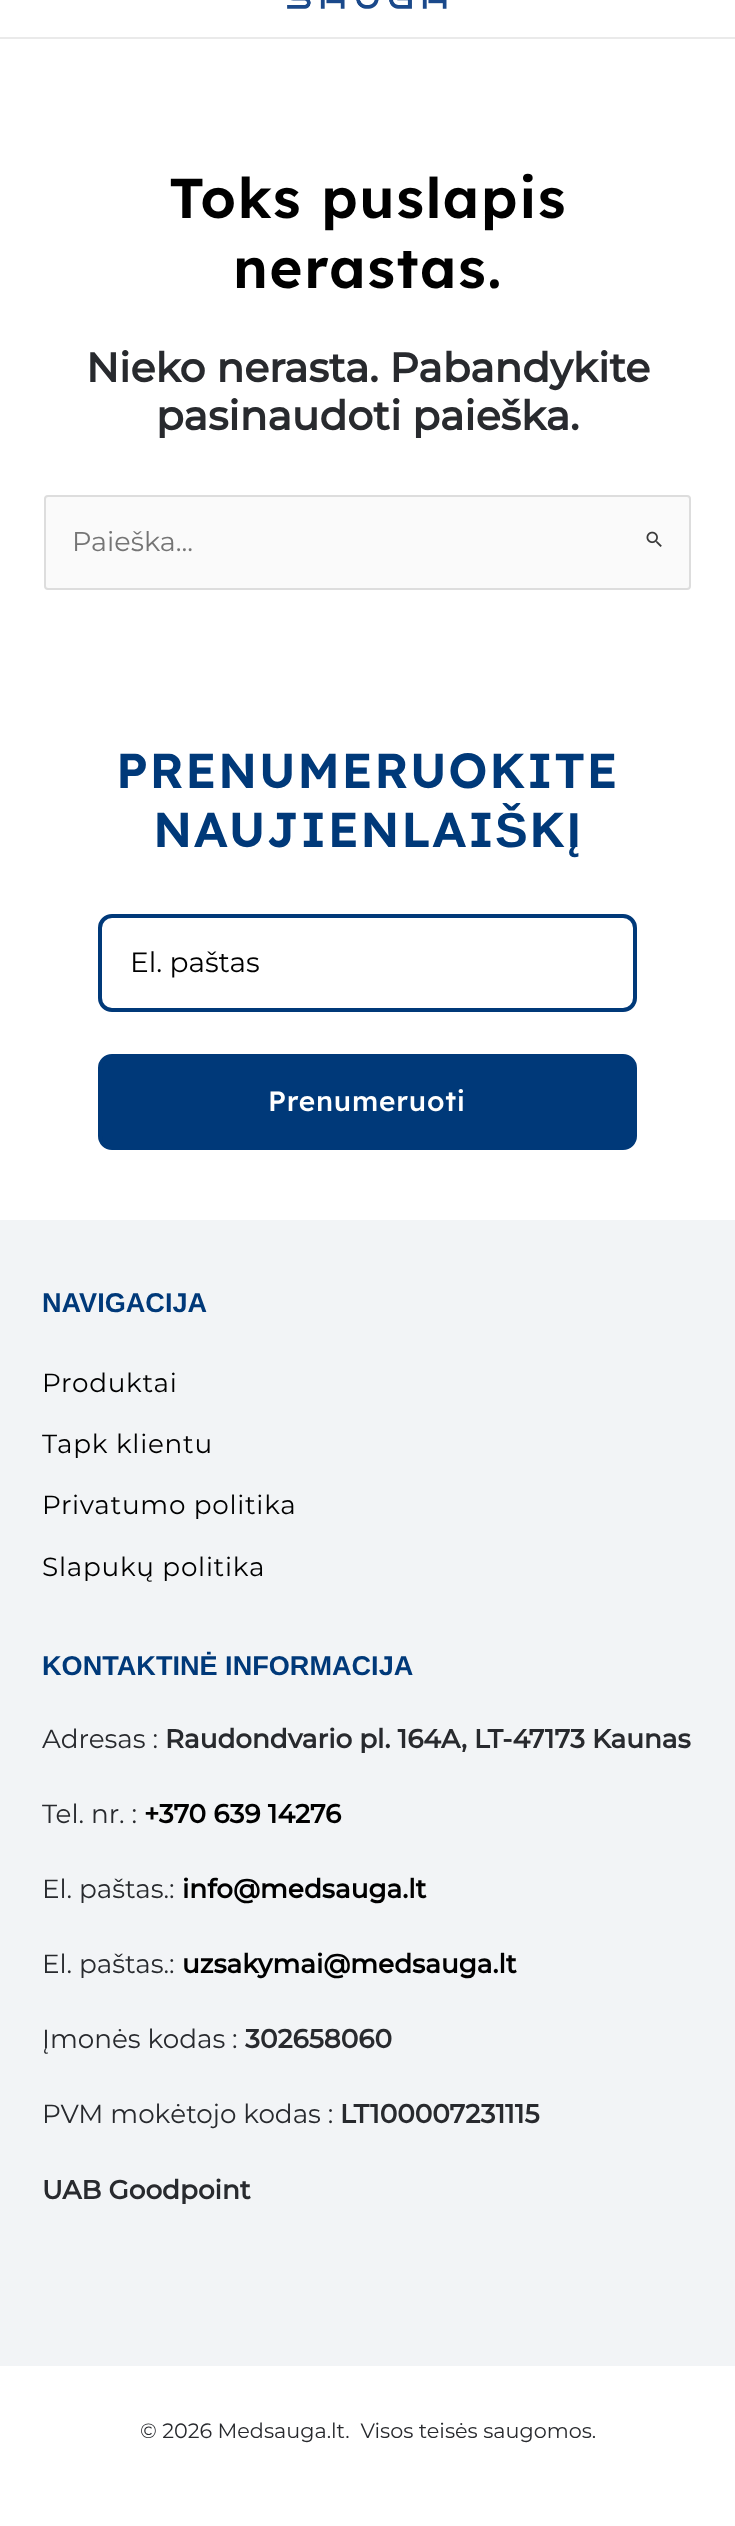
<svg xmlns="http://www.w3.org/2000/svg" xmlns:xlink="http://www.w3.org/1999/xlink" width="735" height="2526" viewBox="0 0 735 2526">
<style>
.cls-1{font:600 56px Lexend Deca;letter-spacing:1.75px;fill:#000000}
.cls-2{font:bold 40.75px Montserrat;fill:#282a2e}
.cls-3{font:27.1px Montserrat;fill:#757575}
.cls-4{font:600 49px Lexend Deca;letter-spacing:1.5px;fill:#003979}
.cls-5{font:bold 49px Liberation Sans;letter-spacing:1.5px;fill:#003979}
.cls-6{font:28px 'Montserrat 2';fill:#000000}
.cls-7{font:500 28px Lexend Deca;letter-spacing:0.8px;fill:#ffffff}
.cls-8{font:bold 27.1px Liberation Sans;fill:#003979}
.cls-9{font:26.25px Montserrat;letter-spacing:0.75px;fill:#000000}
.cls-10{font:26.25px Montserrat;fill:#282a2e}
.cls-11{font:bold 26.25px Montserrat;fill:#282a2e}
.cls-12{font:bold 26.25px Montserrat;fill:#000000}
.cls-13{font:20.75px Montserrat;fill:#282a2e}
</style>
<rect width="100%" height="100%" fill="#ffffff"/>
<rect fill="#eaeaea" x="0" y="37" width="735" height="2"/>
<image xlink:href="image0.png" x="287" y="0" width="160" height="9"/>
<rect fill="#fafafa" stroke="#dddddd" stroke-width="2" x="45" y="496" width="645" height="93" rx="3"/>
<image xlink:href="image1.png" x="646" y="531" width="16" height="16"/>
<rect fill="none" stroke="#003979" stroke-width="4" x="100" y="916" width="535" height="94" rx="12"/>
<rect fill="#003979" stroke="#003979" stroke-width="4" x="100" y="1056" width="535" height="92" rx="12"/>
<rect fill="#f2f4f6" x="0" y="1220" width="735" height="1146"/>
<text class="cls-1" x="169" y="218">Toks puslapis</text>
<text class="cls-1" x="233" y="288">nerastas.</text>
<text class="cls-2" x="86" y="382">Nieko nerasta. Pabandykite</text>
<text class="cls-2" x="156" y="430">pasinaudoti paieška.</text>
<text class="cls-3" x="72" y="551">Paieška...</text>
<text class="cls-4" x="116" y="788">PRENUMERUOKITE</text>
<text class="cls-4" x="153" y="847">NAUJIENLAI</text>
<text class="cls-5" x="495" y="847">Š</text>
<text class="cls-4" x="529" y="847">K</text>
<text class="cls-5" x="567" y="847">Į</text>
<text class="cls-6" x="130" y="972">El. paštas</text>
<text class="cls-7" x="268" y="1111">Prenumeruoti</text>
<text class="cls-8" x="42" y="1312">NAVIGACIJA</text>
<text class="cls-9" x="42" y="1392">Produktai</text>
<text class="cls-9" x="42" y="1453">Tapk klientu</text>
<text class="cls-9" x="42" y="1514">Privatumo politika</text>
<text class="cls-9" x="42" y="1576">Slapukų politika</text>
<text class="cls-8" x="42" y="1675">KONTAKTINĖ INFORMACIJA</text>
<text class="cls-10" x="42" y="1748">Adresas :</text>
<text class="cls-11" x="165" y="1748">Raudondvario pl. 164A, LT-47173 Kaunas</text>
<text class="cls-10" x="42" y="1823">Tel. nr. :</text>
<text class="cls-12" x="144" y="1823">+370 639 14276</text>
<text class="cls-10" x="42" y="1898">El. paštas.:</text>
<text class="cls-12" x="182" y="1898">info@medsauga.lt</text>
<text class="cls-10" x="42" y="1973">El. paštas.:</text>
<text class="cls-12" x="182" y="1973">uzsakymai@medsauga.lt</text>
<text class="cls-10" x="42" y="2048">Įmonės kodas :</text>
<text class="cls-11" x="245" y="2048">302658060</text>
<text class="cls-10" x="42" y="2123">PVM mokėtojo kodas :</text>
<text class="cls-11" x="340" y="2123">LT100007231115</text>
<text class="cls-11" x="42" y="2199">UAB Goodpoint</text>
<text class="cls-13" xml:space="preserve" x="140" y="2438">© 2026 Medsauga.lt.  Visos teisės saugomos.</text>
</svg>
